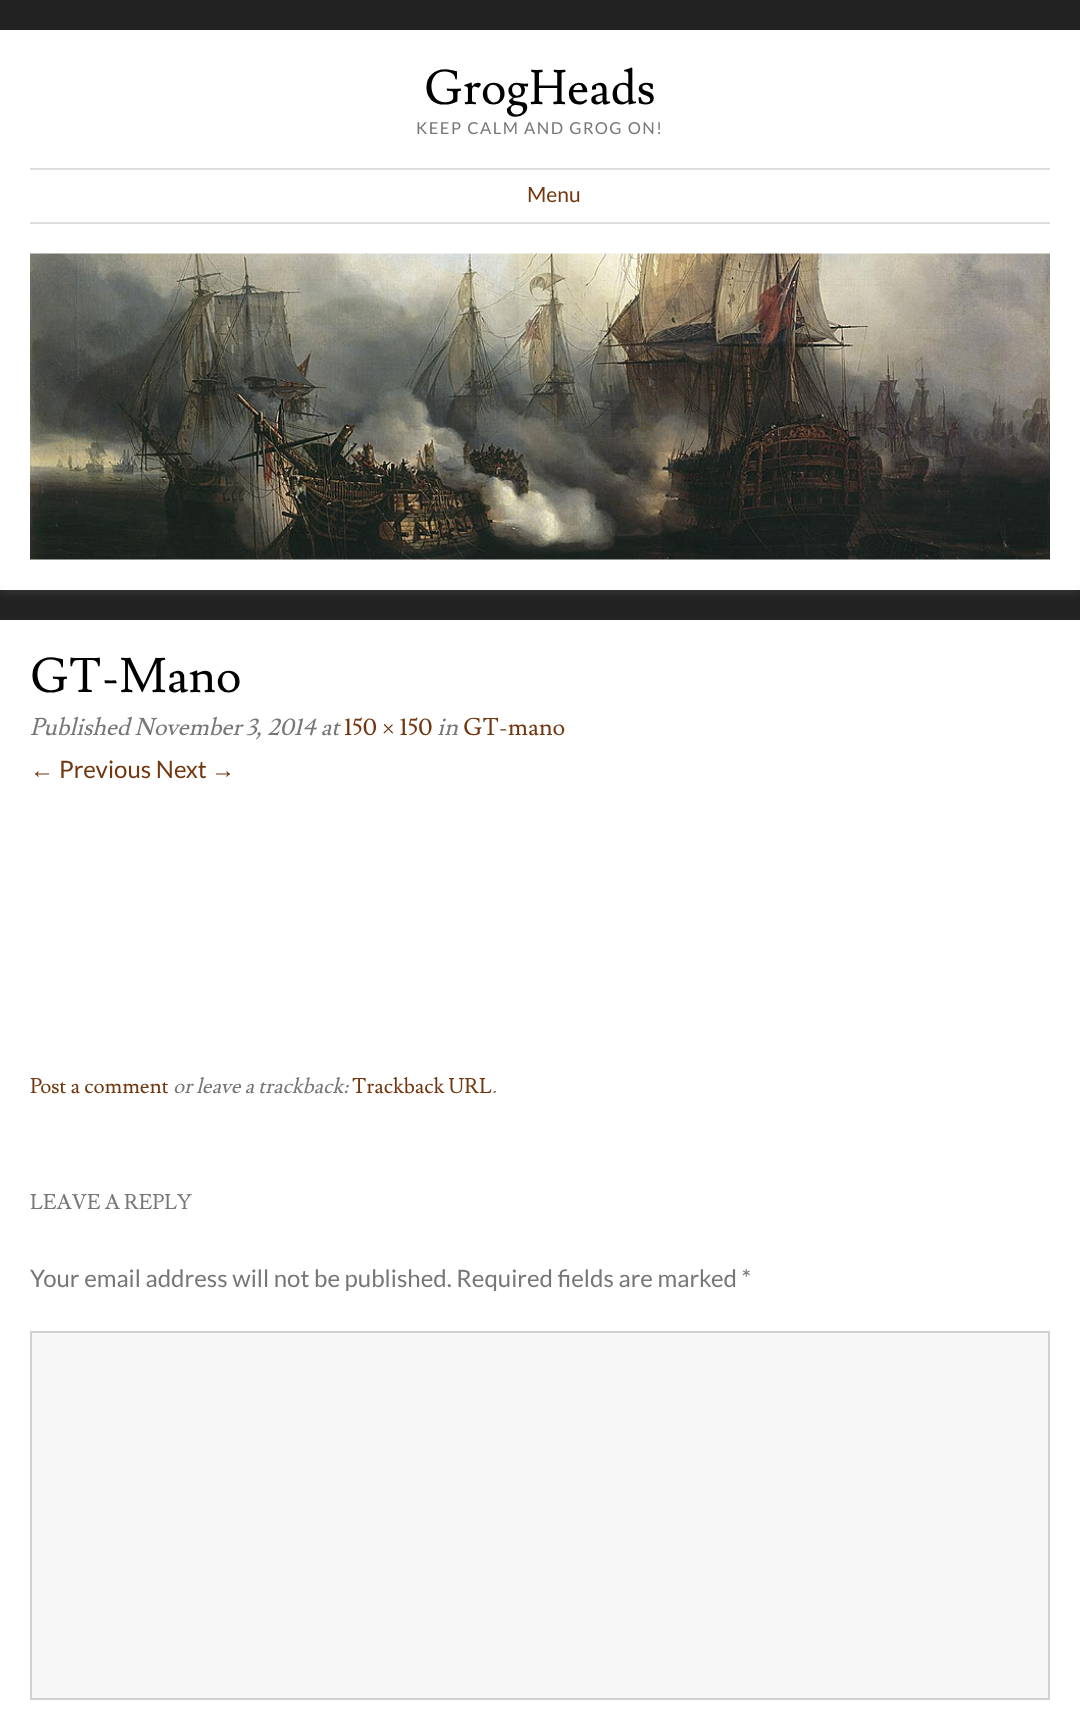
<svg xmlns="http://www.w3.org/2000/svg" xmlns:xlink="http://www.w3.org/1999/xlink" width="1080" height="1723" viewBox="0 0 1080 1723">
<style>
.cls-1{font:48px Lusitana;fill:#000000}
.cls-2{font:16.5px Lato;letter-spacing:1.5px;fill:#777777}
.cls-3{font:21px Lato;fill:#723710}
.cls-4{font:italic 24px Lusitana;fill:#777777}
.cls-5{font:24px Lusitana;fill:#723710}
.cls-6{font:24px Liberation Sans;fill:#723710}
.cls-7{font:24px Lato;fill:#723710}
.cls-8{font:21px Lusitana;fill:#723710}
.cls-9{font:italic 21px Lusitana;fill:#777777}
.cls-10{font:21px Lusitana;fill:#777777}
.cls-11{font:24px Lato;fill:#777777}
</style>
<defs>
<clipPath id="clip1"><rect x="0" y="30" width="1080" height="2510"/></clipPath>
</defs>
<rect width="100%" height="100%" fill="#222222"/>
<g clip-path="url(#clip1)">
<rect fill="#646464" fill-opacity="0.3" filter="blur(4.5px)" x="0" y="33" width="1080" height="560"/>
</g>
<rect fill="#ffffff" x="0" y="30" width="1080" height="560"/>
<rect fill="#dddddd" x="30" y="168" width="1020" height="2"/>
<rect fill="#dddddd" x="30" y="222" width="1020" height="2"/>
<image xlink:href="image0.png" x="30" y="253" width="1020" height="307"/>
<rect fill="#646464" fill-opacity="0.3" filter="blur(4.5px)" x="0" y="623" width="1080" height="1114"/>
<rect fill="#ffffff" x="0" y="620" width="1080" height="1103"/>
<rect fill="#f7f7f7" stroke="#d1d1d1" stroke-width="2" x="31" y="1332" width="1018" height="367"/>
<text class="cls-1" x="424" y="104">GrogHeads</text>
<text class="cls-2" x="416" y="134">KEEP CALM AND GROG ON!</text>
<text class="cls-3" x="527" y="202">Menu</text>
<text class="cls-1" x="30" y="692">GT-Mano</text>
<text class="cls-4" x="30" y="735">Published November 3, 2014 at</text>
<text class="cls-5" x="344" y="735">150 × 150</text>
<text class="cls-4" x="437" y="735">in</text>
<text class="cls-5" x="463" y="735">GT-mano</text>
<text class="cls-6" x="30" y="778">←</text>
<text class="cls-7" x="59" y="778">Previous Next</text>
<text class="cls-6" x="211" y="778">→</text>
<text class="cls-8" x="30" y="1093">Post a comment</text>
<text class="cls-9" x="173" y="1093">or leave a trackback:</text>
<text class="cls-8" x="352" y="1093">Trackback URL</text>
<text class="cls-9" x="492" y="1093">.</text>
<text class="cls-10" x="30" y="1209">LEAVE A REPLY</text>
<text class="cls-11" x="30" y="1287">Your email address will not be published. Required fields are marked *</text>
</svg>
